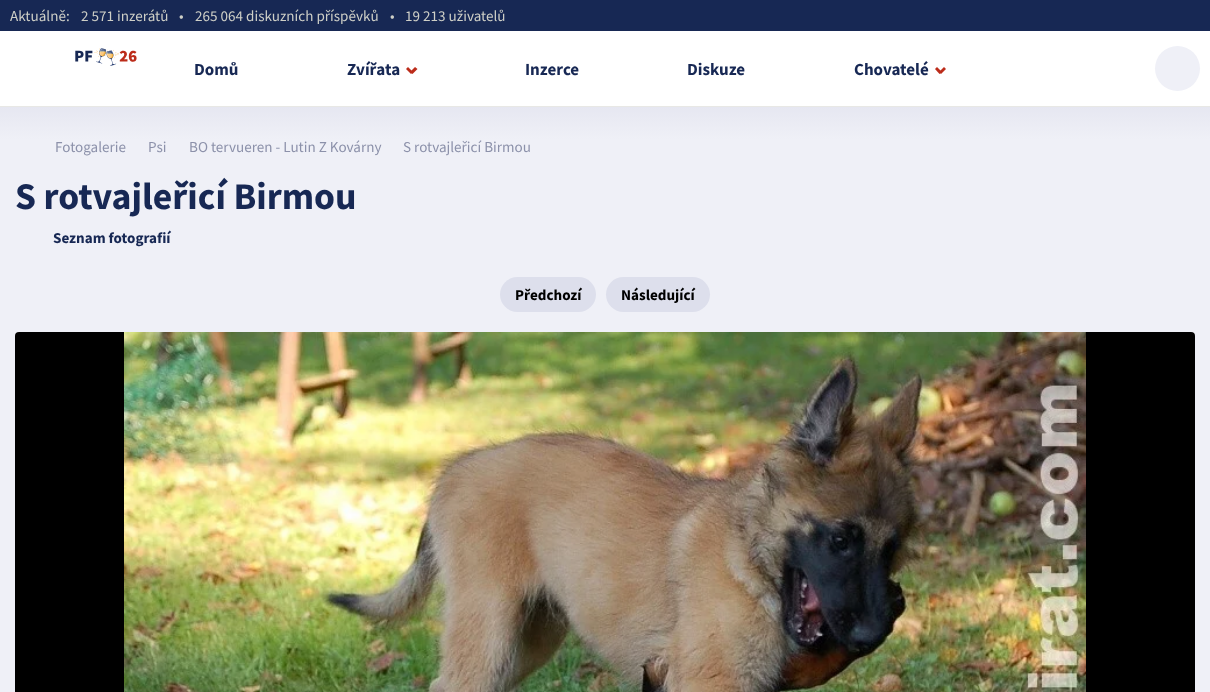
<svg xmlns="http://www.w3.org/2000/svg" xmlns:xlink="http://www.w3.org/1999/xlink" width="1210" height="692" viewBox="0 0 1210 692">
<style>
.cls-1{font:15.1px Source Sans Pro;fill:#cecfc7}
.cls-2{font:bold 17px Source Sans Pro;fill:#172854}
.cls-3{font:15.1px Source Sans Pro;fill:#8c91aa}
.cls-4{font:bold 37.75px Source Sans Pro;fill:#172854}
.cls-5{font:bold 15.1px Source Sans Pro;fill:#172854}
.cls-6{font:bold 15.1px Source Sans Pro;fill:#000000}
</style>
<defs>
<linearGradient id="g1" gradientUnits="userSpaceOnUse" x1="605" y1="107" x2="605" y2="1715"><stop offset="0" stop-color="#e6e7f1"/><stop offset="0.02" stop-color="#eff0f7"/></linearGradient>
</defs>
<rect width="100%" height="100%" fill="#172854"/>
<rect fill="#ffffff" x="0" y="31" width="1210" height="75"/>
<rect fill="#e8e8e5" x="0" y="106" width="1210" height="1"/>
<image xlink:href="image0.png" x="75" y="48" width="62" height="18"/>
<circle fill="#eff0f7" cx="1177.5" cy="68.5" r="22.5"/>
<path fill="#bc2c1a" d="M415 67L417.5 69L412.5 74L410 72Z"/>
<path fill="#bc2c1a" d="M408 67L413 72L411 74L406 69Z"/>
<path fill="#bc2c1a" d="M944 67L946 69L941 74L939 72Z"/>
<path fill="#bc2c1a" d="M937 67L942 72L939.5 74L935 69Z"/>
<rect fill="url(#g1)" x="0" y="107" width="1210" height="585"/>
<rect fill="#dddfec" x="500" y="277" width="96" height="35" rx="17.5"/>
<rect fill="#dddfec" x="606" y="277" width="104" height="35" rx="17.5"/>
<rect fill="#000000" x="15" y="332" width="1180" height="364" rx="4"/>
<image xlink:href="image1.png" x="124" y="332" width="962" height="360"/>
<text class="cls-1" x="10" y="21">Aktuálně:</text>
<text class="cls-1" x="81" y="21">2 571 inzerátů</text>
<text class="cls-1" x="179" y="21">•</text>
<text class="cls-1" x="195" y="21">265 064 diskuzních příspěvků</text>
<text class="cls-1" x="390" y="21">•</text>
<text class="cls-1" x="405" y="21">19 213 uživatelů</text>
<text class="cls-2" x="194" y="75">Domů</text>
<text class="cls-2" x="347" y="75">Zvířata</text>
<text class="cls-2" x="525" y="75">Inzerce</text>
<text class="cls-2" x="687" y="75">Diskuze</text>
<text class="cls-2" x="854" y="75">Chovatelé</text>
<text class="cls-3" x="55" y="152">Fotogalerie</text>
<text class="cls-3" x="148" y="152">Psi</text>
<text class="cls-3" x="189" y="152">BO tervueren - Lutin Z Kovárny</text>
<text class="cls-3" x="403" y="152">S rotvajleřicí Birmou</text>
<text class="cls-4" x="15" y="209">S rotvajleřicí Birmou</text>
<text class="cls-5" x="53" y="243">Seznam fotografií</text>
<text class="cls-6" x="515" y="300">Předchozí</text>
<text class="cls-6" x="621" y="300">Následující</text>
</svg>
